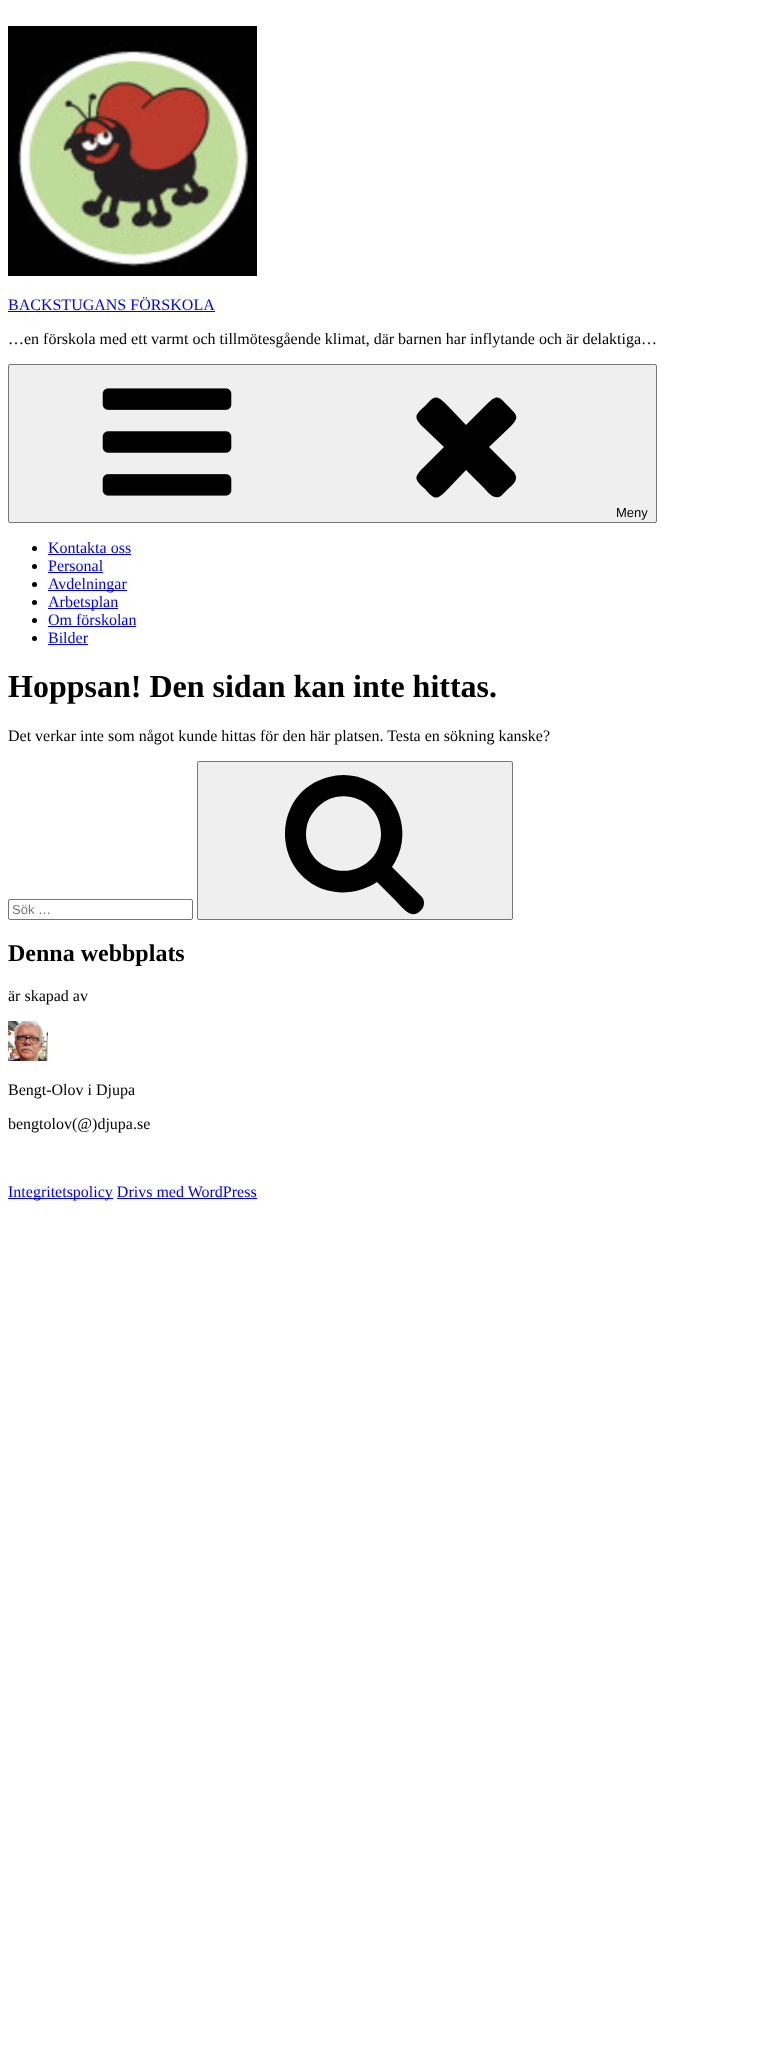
<svg xmlns="http://www.w3.org/2000/svg" xmlns:xlink="http://www.w3.org/1999/xlink" width="777" height="2057" viewBox="0 0 777 2057">
<style>
.cls-1{font:16px Liberation Serif;fill:#0000ee}
.cls-2{font:16px Liberation Serif;fill:#000000}
.cls-3{font:13px Liberation Sans;fill:#000000}
.cls-4{font:bold 32px Liberation Serif;fill:#000000}
.cls-5{font:13px Liberation Sans;fill:#757575}
.cls-6{font:bold 24px Liberation Serif;fill:#000000}
</style>
<rect width="100%" height="100%" fill="#ffffff"/>
<image xlink:href="image0.png" x="8" y="26" width="249" height="250"/>
<rect fill="#0000ee" x="8" y="311" width="207" height="1"/>
<rect fill="#efefef" stroke="#767676" x="8.5" y="364.5" width="648" height="158" rx="1.5"/>
<image xlink:href="image1.png" x="102" y="388" width="130" height="108"/>
<path fill="#000000" d="M516 478C516 483 510 487 506 491L501 496C494 501 487 491 483 487L466 470L446 491C436 501 434 499 425 489C415 480 413 478 423 468L444 447L423 427C413 417 415 415 425 406C434 396 436 394 446 404L466 425L487 404C497 394 499 396 508 406C517 415 520 417 510 427L489 447L514 472C515 474 516 475 516 478Z"/>
<circle fill="#000000" cx="34.5" cy="548.5" r="2.5"/>
<rect fill="#0000ee" x="48" y="554" width="83" height="1"/>
<circle fill="#000000" cx="34.5" cy="566.5" r="2.5"/>
<rect fill="#0000ee" x="48" y="572" width="55" height="1"/>
<circle fill="#000000" cx="34.5" cy="584.5" r="2.5"/>
<rect fill="#0000ee" x="48" y="590" width="79" height="1"/>
<circle fill="#000000" cx="34.5" cy="602.5" r="2.5"/>
<rect fill="#0000ee" x="48" y="608" width="70" height="1"/>
<circle fill="#000000" cx="34.5" cy="620.5" r="2.5"/>
<rect fill="#0000ee" x="48" y="626" width="88" height="1"/>
<circle fill="#000000" cx="34.5" cy="638.5" r="2.5"/>
<rect fill="#0000ee" x="48" y="644" width="40" height="1"/>
<rect fill="none" stroke="#767676" x="8.5" y="899.5" width="184" height="20" rx="1.5"/>
<rect fill="#efefef" stroke="#767676" x="197.5" y="761.5" width="315" height="158" rx="1.5"/>
<path fill="#000000" d="M381 834C381 798 337 783 315 810C309 817 306 825 306 834C306 869 350 884 373 857C378 851 381 842 381 834ZM424 903C424 907 422 910 419 912C410 919 402 907 396 901L377 882C362 892 343 895 326 890C270 872 272 791 329 777C342 773 357 775 369 781C401 796 413 837 392 867L421 896C423 898 424 900 424 903Z"/>
<image xlink:href="image2.png" x="8" y="1021" width="40" height="40"/>
<rect fill="#0000ee" x="8" y="1198" width="105" height="1"/>
<rect fill="#0000ee" x="117" y="1198" width="140" height="1"/>
<text class="cls-1" x="8" y="310">BACKSTUGANS FÖRSKOLA</text>
<text class="cls-2" x="8" y="344">…en förskola med ett varmt och tillmötesgående klimat, där barnen har inflytande och är delaktiga…</text>
<text class="cls-3" x="616" y="517">Meny</text>
<text class="cls-1"><tspan x="48" y="553">Kontakta oss</tspan><tspan x="48" y="571">Personal</tspan><tspan x="48" y="589">Avdelningar</tspan><tspan x="48" y="607">Arbetsplan</tspan><tspan x="48" y="625">Om förskolan</tspan><tspan x="48" y="643">Bilder</tspan></text>
<text class="cls-4" x="8" y="697">Hoppsan! Den sidan kan inte hittas.</text>
<text class="cls-2" x="8" y="741">Det verkar inte som något kunde hittas för den här platsen. Testa en sökning kanske?</text>
<text class="cls-5" x="12" y="914">Sök …</text>
<text class="cls-6" x="8" y="961">Denna webbplats</text>
<text class="cls-2" x="8" y="1001">är skapad av</text>
<text class="cls-2" x="8" y="1095">Bengt-Olov i Djupa</text>
<text class="cls-2" x="8" y="1129">bengtolov(@)djupa.se</text>
<text class="cls-1" x="8" y="1197">Integritetspolicy Drivs med WordPress</text>
</svg>
